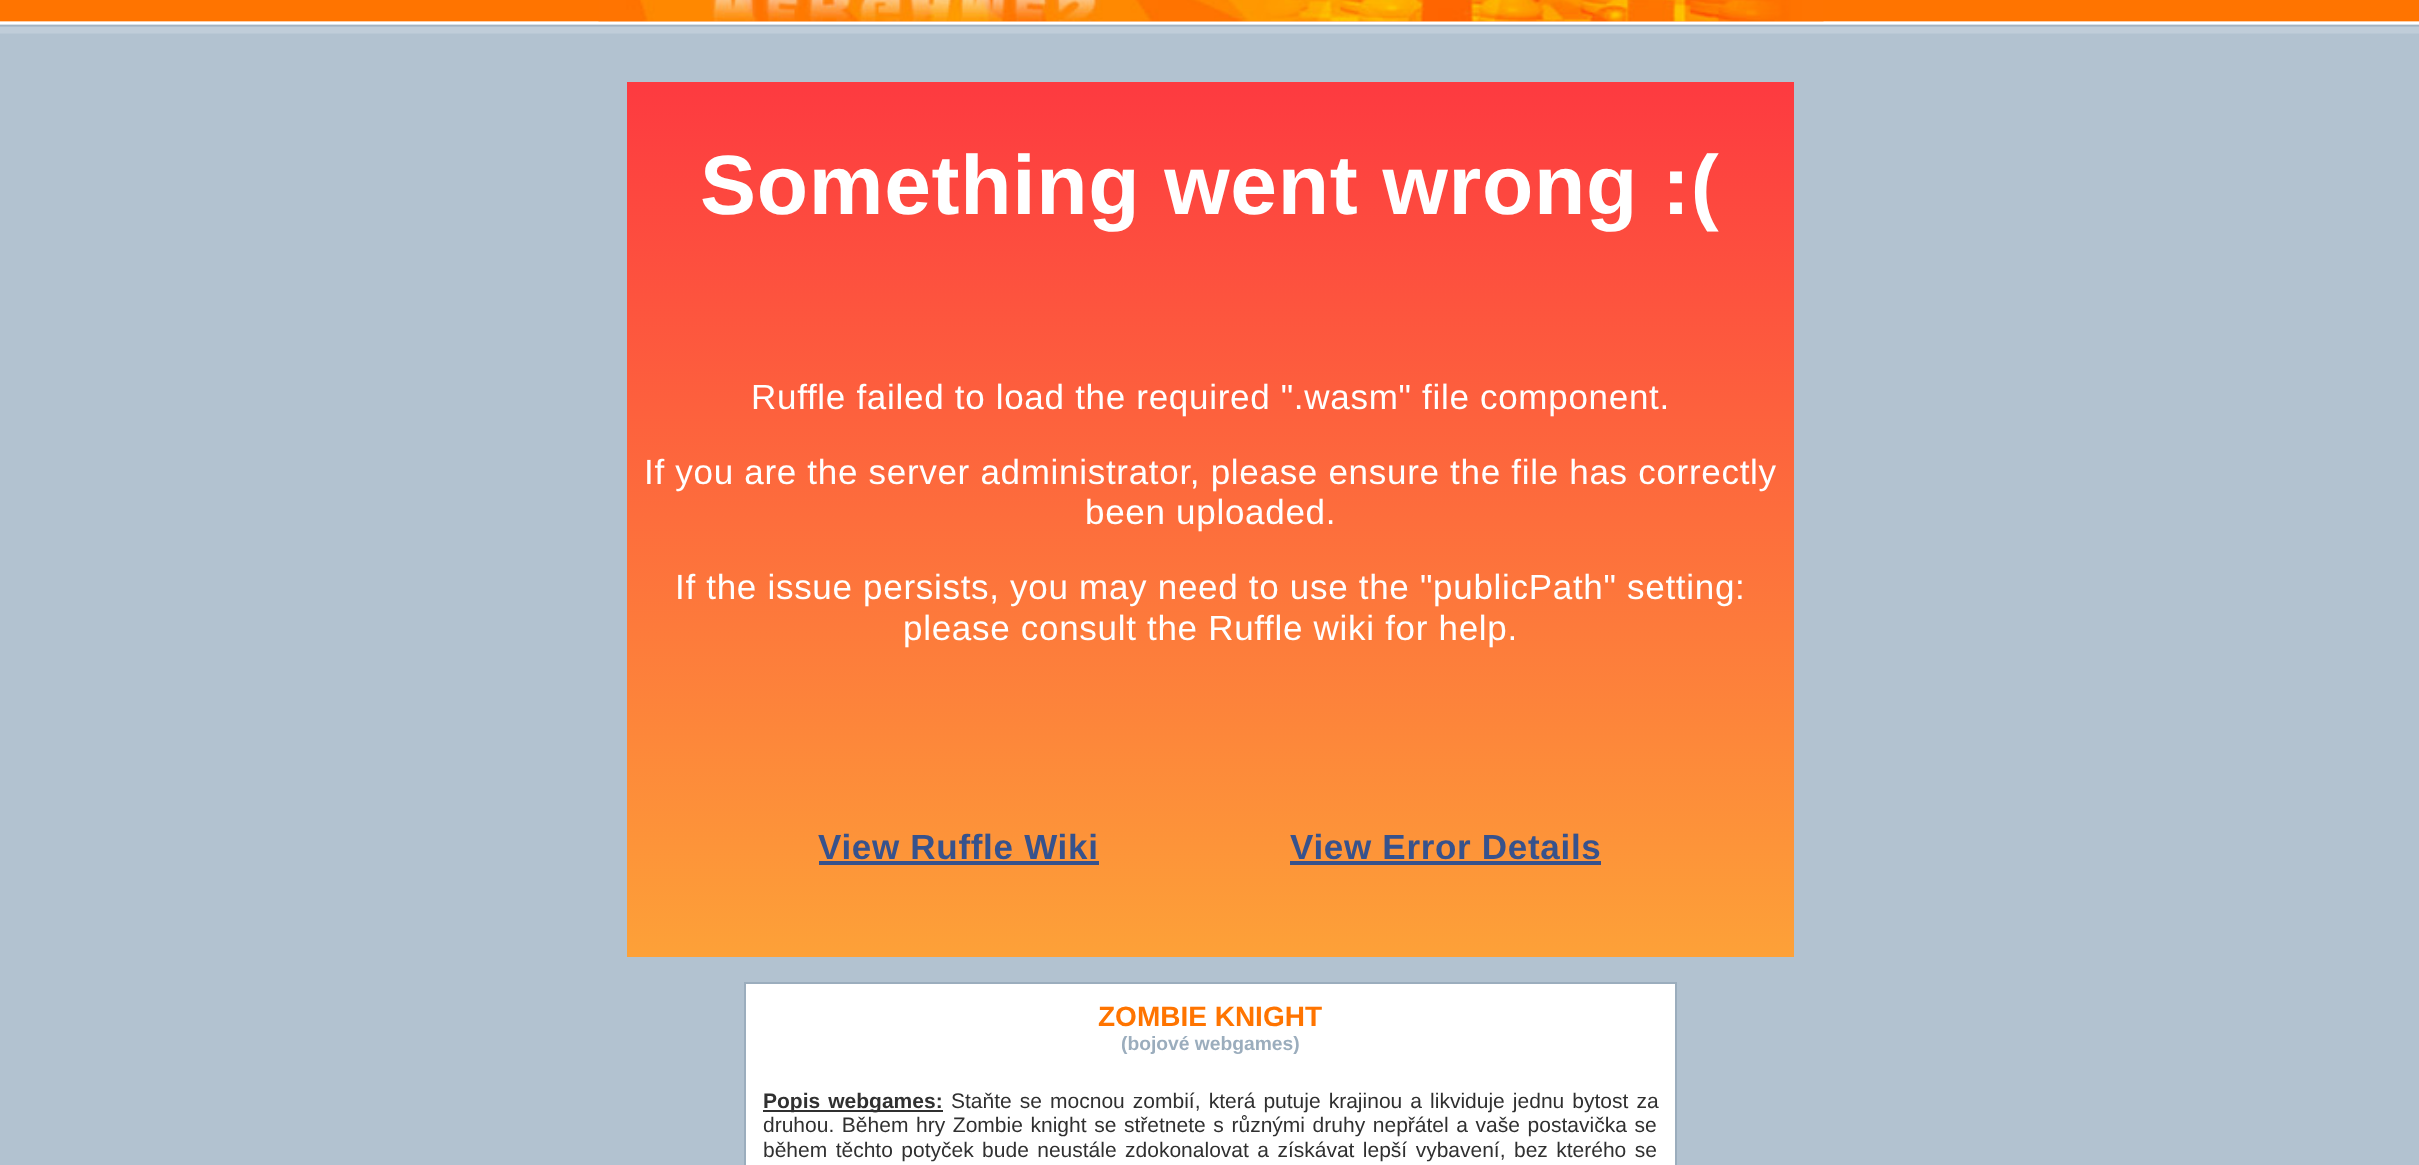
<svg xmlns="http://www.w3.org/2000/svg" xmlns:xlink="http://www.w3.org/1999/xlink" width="2419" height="1165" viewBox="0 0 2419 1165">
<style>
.cls-1{font:bold 84px Liberation Sans;letter-spacing:0.7px;fill:#ffffff}
.cls-2{font:35px Liberation Sans;letter-spacing:0.7px;fill:#ffffff}
.cls-3{font:bold 35px Liberation Sans;letter-spacing:0.7px;fill:#37528c}
.cls-4{font:bold 28px Liberation Sans;fill:#ff7400}
.cls-5{font:bold 19.25px Liberation Sans;fill:#9badbd}
.cls-6{font:bold 21px Liberation Sans;fill:#303030}
.cls-7{font:21px Liberation Sans;fill:#303030}
</style>
<defs>
<linearGradient id="g1" gradientUnits="userSpaceOnUse" x1="1210" y1="82" x2="1210" y2="957"><stop offset="0" stop-color="#fd3a40"/><stop offset="1" stop-color="#fda138"/></linearGradient>
</defs>
<rect width="100%" height="100%" fill="#b2c2d0"/>
<image xlink:href="image0.png" x="0" y="21" width="2419" height="13"/>
<rect fill="#ff7400" x="0" y="0" width="2419" height="21"/>
<image xlink:href="image1.png" x="598" y="0" width="1226" height="22"/>
<rect fill="url(#g1)" x="627" y="82" width="1167" height="875"/>
<rect fill="#37528c" x="819" y="861" width="280" height="4"/>
<rect fill="#37528c" x="1290" y="861" width="311" height="4"/>
<rect fill="#ffffff" stroke="#9badbd" stroke-width="2" x="745" y="983" width="931" height="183"/>
<rect fill="#303030" x="763" y="1110" width="180" height="2"/>
<text class="cls-1" x="700" y="214">Something went wrong :(</text>
<text class="cls-2" x="751" y="409">Ruffle failed to load the required ".wasm" file component.</text>
<text class="cls-2" x="644" y="484">If you are the server administrator, please ensure the file has correctly</text>
<text class="cls-2" x="1085" y="524">been uploaded.</text>
<text class="cls-2" x="675" y="599">If the issue persists, you may need to use the "publicPath" setting:</text>
<text class="cls-2" x="903" y="640">please consult the Ruffle wiki for help.</text>
<text class="cls-3" x="818" y="859">View Ruffle Wiki</text>
<text class="cls-3" x="1290" y="859">View Error Details</text>
<text class="cls-4" x="1098" y="1026">ZOMBIE KNIGHT</text>
<text class="cls-5" x="1121" y="1050">(bojové webgames)</text>
<text class="cls-6" x="763" y="1108" word-spacing="2.25">Popis webgames:</text>
<text class="cls-7" x="951" y="1108" word-spacing="2.25">Staňte se mocnou zombií, která putuje krajinou a likviduje jednu bytost za</text>
<text class="cls-7"><tspan x="763" y="1132" word-spacing="1.8">druhou. Během hry Zombie knight se střetnete s různými druhy nepřátel a vaše postavička se</tspan><tspan x="763" y="1157" word-spacing="2.6">během těchto potyček bude neustále zdokonalovat a získávat lepší vybavení, bez kterého se</tspan></text>
</svg>
